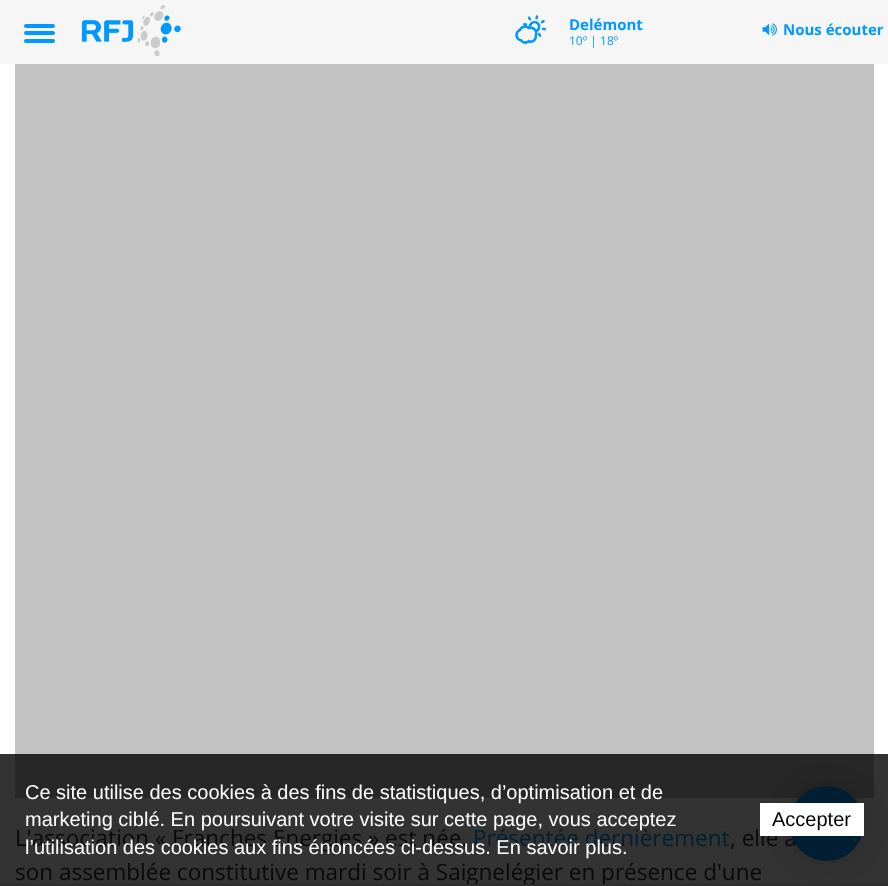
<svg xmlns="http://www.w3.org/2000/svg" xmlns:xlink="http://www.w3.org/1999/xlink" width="888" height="886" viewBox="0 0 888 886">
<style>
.cls-1{font:bold 15px Open Sans;fill:#0099ff}
.cls-2{font:12px Open Sans;fill:#0099ff}
.cls-3{font:22.5px Open Sans;fill:#0a0a0a}
.cls-4{font:22.5px Open Sans;fill:#001f33}
.cls-5{font:20px Liberation Sans;fill:#ffffff}
.cls-6{font:20px Liberation Sans;fill:#000000}
</style>
<rect width="100%" height="100%" fill="#ffffff"/>
<rect fill="#333333" x="0" y="754" width="888" height="130"/>
<rect fill="#f6f6f6" x="0" y="0" width="888" height="64"/>
<rect fill="#0099ff" x="24" y="31" width="31" height="4" rx="2"/>
<rect fill="#0099ff" x="24" y="24" width="31" height="4" rx="2"/>
<rect fill="#0099ff" x="24" y="39" width="31" height="4" rx="2"/>
<image xlink:href="image0.png" x="81" y="5" width="100" height="51"/>
<image xlink:href="image1.png" x="515" y="15" width="31" height="29"/>
<image xlink:href="image2.png" x="762" y="23" width="15" height="13"/>
<rect fill="#c3c3c3" x="15" y="64" width="859" height="690"/>
<rect fill="#272727" x="15" y="754" width="859" height="44"/>
<rect fill="#000000" fill-opacity="0.2" filter="blur(12.5px)" x="789" y="786" width="75" height="75" rx="37.5"/>
<text class="cls-1" x="569" y="30">Delémont</text>
<text class="cls-2" x="569" y="45">10º | 18º</text>
<text class="cls-1" x="783" y="35">Nous écouter</text>
<text class="cls-3" x="15" y="846">L'association « Franches Energies » est née.</text>
<text class="cls-4" x="473" y="846">Présentée dernièrement</text>
<text class="cls-3" x="730" y="846">, elle a</text>
<text class="cls-3" x="15" y="880">son assemblée constitutive mardi soir à Saignelégier en présence d'une</text>
<circle fill="#001f33" cx="826.5" cy="823.5" r="37.5"/>
<text class="cls-5"><tspan x="25" y="799">Ce site utilise des cookies à des fins de statistiques, d’optimisation et de</tspan><tspan x="25" y="826">marketing ciblé. En poursuivant votre visite sur cette page, vous acceptez</tspan><tspan x="25" y="854">l’utilisation des cookies aux fins énoncées ci-dessus. En savoir plus.</tspan></text>
<rect fill="#ffffff" x="760" y="803" width="104" height="33"/>
<text class="cls-6" x="772" y="826">Accepter</text>
<rect fill="#303030" x="0" y="885" width="888" height="1"/>
<rect fill="#2d2d2d" x="0" y="884" width="888" height="1"/>
</svg>
